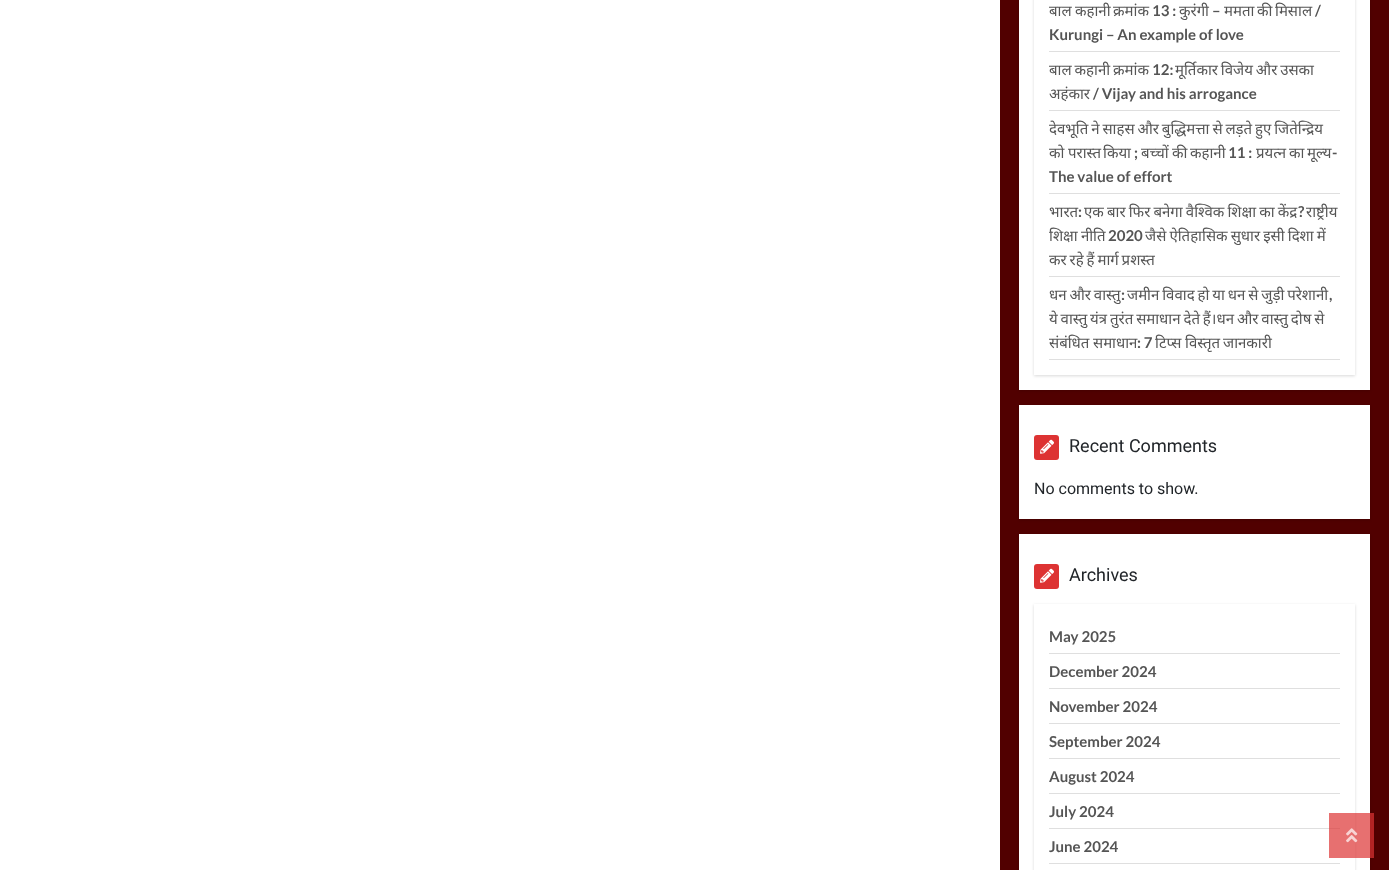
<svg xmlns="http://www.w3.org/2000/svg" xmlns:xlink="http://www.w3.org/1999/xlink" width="1389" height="870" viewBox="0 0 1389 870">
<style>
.cls-1{font:15px Noto Sans;fill:#555555}
.cls-2{font:bold 15px Lato;fill:#555555}
.cls-3{font:18px Roboto;fill:#212529}
.cls-4{font:16px Roboto;fill:#212529}
</style>
<defs>
<clipPath id="clip1"><path d="M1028 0H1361V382H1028ZM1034-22H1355V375H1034Z" clip-rule="evenodd"/></clipPath>
<clipPath id="clip2"><path d="M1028 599H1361V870H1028ZM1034 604H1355V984H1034Z" clip-rule="evenodd"/></clipPath>
</defs>
<rect width="100%" height="100%" fill="#ffffff"/>
<rect fill="#510000" x="1000" y="0" width="389" height="870"/>
<rect fill="#000000" fill-opacity="0.15" filter="blur(1.5px)" x="1019" y="-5" width="351" height="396"/>
<rect fill="#ffffff" x="1019" y="0" width="351" height="390"/>
<g clip-path="url(#clip1)">
<rect fill="#000000" fill-opacity="0.15" filter="blur(1.5px)" x="1034" y="-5" width="321" height="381"/>
</g>
<rect fill="#dfdfdf" x="1049" y="51" width="291" height="1"/>
<rect fill="#dfdfdf" x="1049" y="110" width="291" height="1"/>
<rect fill="#dfdfdf" x="1049" y="193" width="291" height="1"/>
<rect fill="#dfdfdf" x="1049" y="276" width="291" height="1"/>
<rect fill="#dfdfdf" x="1049" y="359" width="291" height="1"/>
<rect fill="#000000" fill-opacity="0.15" filter="blur(1.5px)" x="1019" y="406" width="351" height="114"/>
<rect fill="#ffffff" x="1019" y="405" width="351" height="114"/>
<rect fill="#dd3333" x="1034" y="435" width="25" height="25" rx="3"/>
<image xlink:href="image0.png" x="1040" y="439" width="14" height="15"/>
<rect fill="#000000" fill-opacity="0.15" filter="blur(1.5px)" x="1019" y="535" width="351" height="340"/>
<rect fill="#ffffff" x="1019" y="534" width="351" height="336"/>
<rect fill="#dd3333" x="1034" y="564" width="25" height="25" rx="3"/>
<image xlink:href="image0.png" x="1040" y="568" width="14" height="15"/>
<g clip-path="url(#clip2)">
<rect fill="#000000" fill-opacity="0.15" filter="blur(1.5px)" x="1034" y="605" width="321" height="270"/>
</g>
<rect fill="#dfdfdf" x="1049" y="653" width="291" height="1"/>
<rect fill="#dfdfdf" x="1049" y="688" width="291" height="1"/>
<rect fill="#dfdfdf" x="1049" y="723" width="291" height="1"/>
<rect fill="#dfdfdf" x="1049" y="758" width="291" height="1"/>
<rect fill="#dfdfdf" x="1049" y="793" width="291" height="1"/>
<rect fill="#dfdfdf" x="1049" y="828" width="291" height="1"/>
<rect fill="#dfdfdf" x="1049" y="863" width="291" height="1"/>
<rect fill="#dd3333" fill-opacity="0.7" x="1329" y="813" width="45" height="45"/>
<image xlink:href="image1.png" x="1346" y="828" width="12" height="15"/>
<text class="cls-1" x="1049" y="16">बाल</text>
<text class="cls-1" x="1075" y="16">कहानी</text>
<text class="cls-1" x="1113" y="16">क्रमांक</text>
<text class="cls-2" x="1152" y="16">13 :</text>
<text class="cls-1" x="1179" y="16">कुरंगी</text>
<text class="cls-2" x="1212" y="16">–</text>
<text class="cls-1" x="1224" y="16">ममता</text>
<text class="cls-1" x="1257" y="16">की</text>
<text class="cls-1" x="1275" y="16">मिसाल</text>
<text class="cls-2" x="1315" y="16">/</text>
<text class="cls-2" x="1049" y="40">Kurungi – An example of love</text>
<text class="cls-1" x="1049" y="75" word-spacing="-1">बाल कहानी क्रमांक</text>
<text class="cls-2" x="1152" y="75">12:</text>
<text class="cls-1" x="1175" y="75" word-spacing="-1">मूर्तिकार विजेय और उसका</text>
<text class="cls-1" x="1049" y="99">अहंकार</text>
<text class="cls-2" x="1093" y="99">/ Vijay and his arrogance</text>
<text class="cls-1"><tspan x="1049" y="134" word-spacing="-1">देवभूति ने साहस और बुद्धिमत्ता से लड़ते हुए जितेन्द्रिय</tspan><tspan x="1049" y="158">को</tspan></text>
<text class="cls-1" x="1068" y="158">परास्त</text>
<text class="cls-1" x="1103" y="158">किया</text>
<text class="cls-2" x="1134" y="158">;</text>
<text class="cls-1" x="1141" y="158">बच्चों</text>
<text class="cls-1" x="1172" y="158">की</text>
<text class="cls-1" x="1190" y="158">कहानी</text>
<text class="cls-2" x="1228" y="158">11 :</text>
<text class="cls-1" x="1256" y="158">प्रयत्न</text>
<text class="cls-1" x="1289" y="158">का</text>
<text class="cls-1" x="1307" y="158">मूल्य</text>
<text class="cls-2" x="1332" y="158">-</text>
<text class="cls-2" x="1049" y="182">The value of effort</text>
<text class="cls-1" x="1049" y="217">भारत</text>
<text class="cls-2" x="1078" y="217">:</text>
<text class="cls-1" x="1084" y="217" word-spacing="-0.75">एक बार फिर बनेगा वैश्विक शिक्षा का केंद्र</text>
<text class="cls-2" x="1298" y="217">?</text>
<text class="cls-1" x="1306" y="217">राष्ट्रीय</text>
<text class="cls-1" x="1049" y="241" word-spacing="-0.75">शिक्षा नीति</text>
<text class="cls-2" x="1108" y="241">2020</text>
<text class="cls-1" x="1145" y="241" word-spacing="-0.75">जैसे ऐतिहासिक सुधार इसी दिशा में</text>
<text class="cls-1" x="1049" y="265" word-spacing="-1">कर रहे हैं मार्ग प्रशस्त</text>
<text class="cls-1" x="1049" y="300" word-spacing="-1">धन और वास्तु</text>
<text class="cls-2" x="1121" y="300">:</text>
<text class="cls-1" x="1127" y="300" word-spacing="-1">जमीन विवाद हो या धन से जुड़ी परेशानी</text>
<text class="cls-2" x="1329" y="300">,</text>
<text class="cls-1"><tspan x="1049" y="324" word-spacing="-1">ये वास्तु यंत्र तुरंत समाधान देते हैं।धन और वास्तु दोष से</tspan><tspan x="1049" y="348">संबंधित</tspan></text>
<text class="cls-1" x="1093" y="348">समाधान</text>
<text class="cls-2" x="1137" y="348">: 7</text>
<text class="cls-1" x="1155" y="348">टिप्स</text>
<text class="cls-1" x="1185" y="348">विस्तृत</text>
<text class="cls-1" x="1223" y="348">जानकारी</text>
<text class="cls-3" x="1069" y="452">Recent Comments</text>
<text class="cls-4" x="1034" y="494">No comments to show.</text>
<text class="cls-3" x="1069" y="581">Archives</text>
<text class="cls-2" x="1049" y="642">May 2025</text>
<text class="cls-2" x="1049" y="677">December 2024</text>
<text class="cls-2" x="1049" y="712">November 2024</text>
<text class="cls-2" x="1049" y="747">September 2024</text>
<text class="cls-2" x="1049" y="782">August 2024</text>
<text class="cls-2" x="1049" y="817">July 2024</text>
<text class="cls-2" x="1049" y="852">June 2024</text>
</svg>
